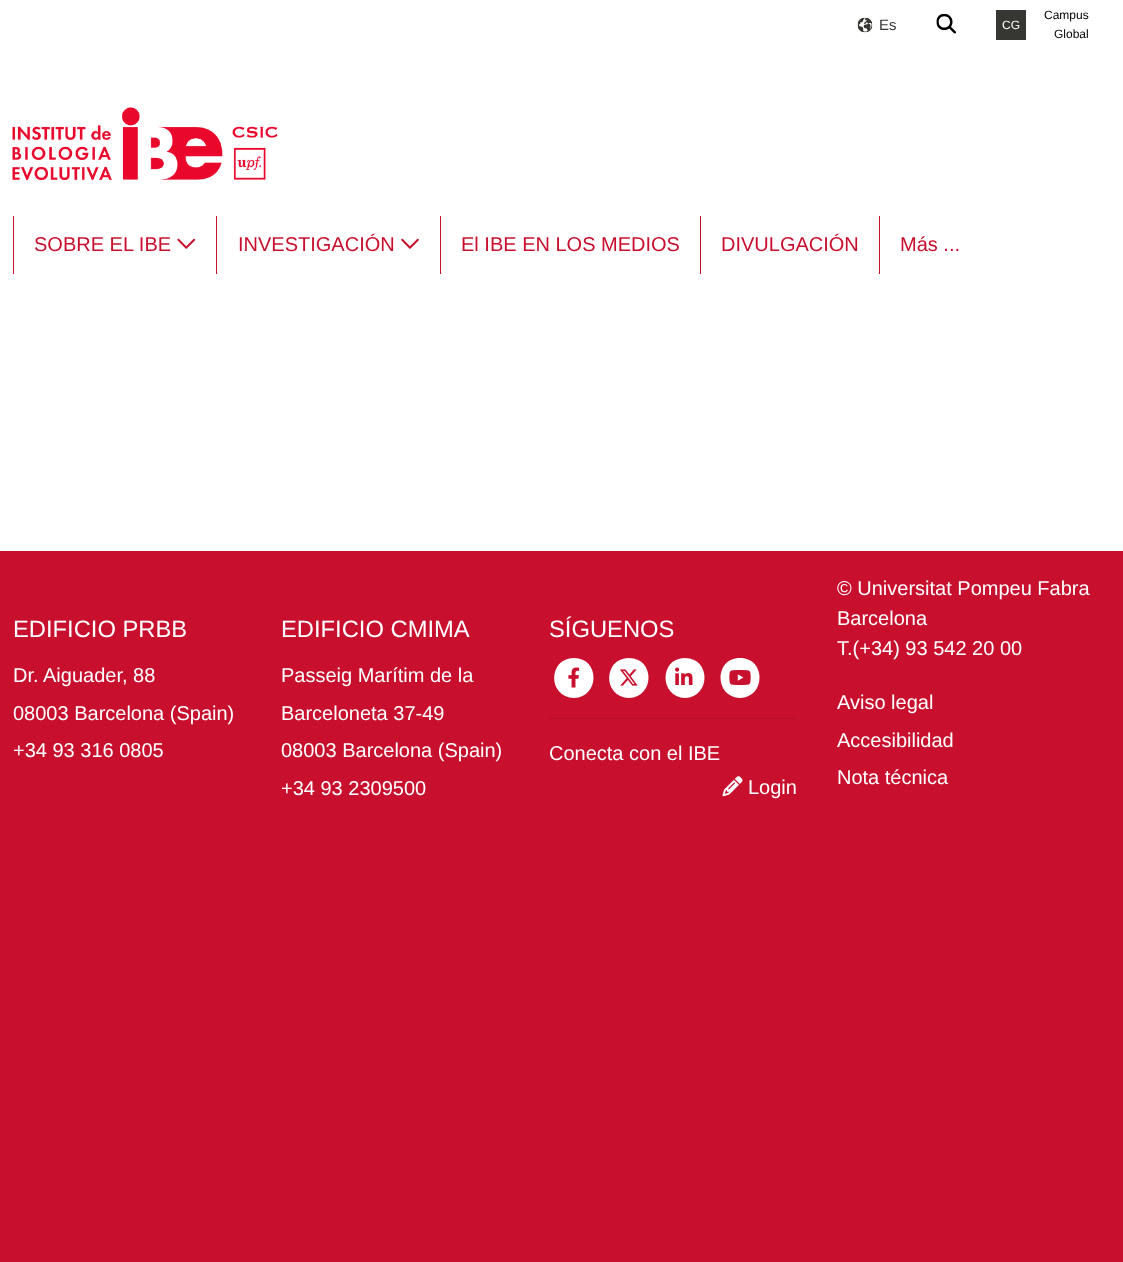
<svg xmlns="http://www.w3.org/2000/svg" xmlns:xlink="http://www.w3.org/1999/xlink" width="1123" height="1262" viewBox="0 0 1123 1262">
<style>
.cls-1{font:15px Liberation Sans;fill:#363733}
.cls-2{font:12px Liberation Sans;fill:#ffffff}
.cls-3{font:12px Liberation Sans;fill:#000000}
.cls-4{font:20px Liberation Sans;fill:#c8102e}
.cls-5{font:23.75px Liberation Sans;fill:#ffffff}
.cls-6{font:20px Liberation Sans;fill:#ffffff}
</style>
<rect width="100%" height="100%" fill="#c8102e"/>
<rect fill="#ffffff" x="0" y="0" width="1123" height="551"/>
<image xlink:href="image0.png" x="857" y="17" width="16" height="16"/>
<image xlink:href="image1.png" x="936" y="14" width="20" height="20"/>
<rect fill="#363733" x="996" y="10" width="30" height="30"/>
<image xlink:href="image2.png" x="12" y="107" width="266" height="73"/>
<rect fill="#c8102e" x="13" y="216" width="1" height="58"/>
<image xlink:href="image3.png" x="177" y="238" width="18" height="11"/>
<rect fill="#c8102e" x="216" y="216" width="1" height="58"/>
<image xlink:href="image4.png" x="401" y="238" width="18" height="11"/>
<rect fill="#c8102e" x="440" y="216" width="1" height="58"/>
<rect fill="#c8102e" x="700" y="216" width="1" height="58"/>
<rect fill="#c8102e" x="879" y="216" width="1" height="58"/>
<path fill="#ffffff" d="M574 698C600 697 600 658 574 658C548 658 547 697 574 698Z"/>
<image xlink:href="image5.png" x="568" y="667" width="12" height="21"/>
<path fill="#ffffff" d="M629 698C655 697 655 658 629 658C603 658 602 697 629 698Z"/>
<image xlink:href="image6.png" x="620" y="669" width="18" height="17"/>
<path fill="#ffffff" d="M685 698C711 697 711 658 685 658C659 658 659 697 685 698Z"/>
<image xlink:href="image7.png" x="675" y="667" width="18" height="18"/>
<path fill="#ffffff" d="M740 698C766 697 766 658 740 658C714 658 714 697 740 698Z"/>
<image xlink:href="image8.png" x="729" y="670" width="22" height="15"/>
<rect fill="#b40e29" x="549" y="718" width="247" height="1"/>
<image xlink:href="image9.png" x="722" y="776" width="21" height="21"/>
<text class="cls-1" x="879" y="30">Es</text>
<text class="cls-2" x="1002" y="29">CG</text>
<text class="cls-3" x="1044" y="19">Campus</text>
<text class="cls-3" x="1054" y="38">Global</text>
<text class="cls-4" x="34" y="251">SOBRE EL IBE</text>
<text class="cls-4" x="238" y="251">INVESTIGACIÓN</text>
<text class="cls-4" x="461" y="251">El IBE EN LOS MEDIOS</text>
<text class="cls-4" x="721" y="251">DIVULGACIÓN</text>
<text class="cls-4" x="900" y="251">Más ...</text>
<text class="cls-5" x="13" y="637">EDIFICIO PRBB</text>
<text class="cls-6"><tspan x="13" y="682">Dr. Aiguader, 88</tspan><tspan x="13" y="720">08003 Barcelona (Spain)</tspan><tspan x="13" y="757">+34 93 316 0805</tspan></text>
<text class="cls-5" x="281" y="637">EDIFICIO CMIMA</text>
<text class="cls-6"><tspan x="281" y="682">Passeig Marítim de la</tspan><tspan x="281" y="720">Barceloneta 37-49</tspan><tspan x="281" y="757">08003 Barcelona (Spain)</tspan><tspan x="281" y="795">+34 93 2309500</tspan></text>
<text class="cls-5" x="549" y="637">SÍGUENOS</text>
<text class="cls-6" x="549" y="760">Conecta con el IBE</text>
<text class="cls-6" x="748" y="794">Login</text>
<text class="cls-6"><tspan x="837" y="595">© Universitat Pompeu Fabra</tspan><tspan x="837" y="625">Barcelona</tspan><tspan x="837" y="655">T.(+34) 93 542 20 00</tspan></text>
<text class="cls-6"><tspan x="837" y="709">Aviso legal</tspan><tspan x="837" y="747">Accesibilidad</tspan><tspan x="837" y="784">Nota técnica</tspan></text>
</svg>
